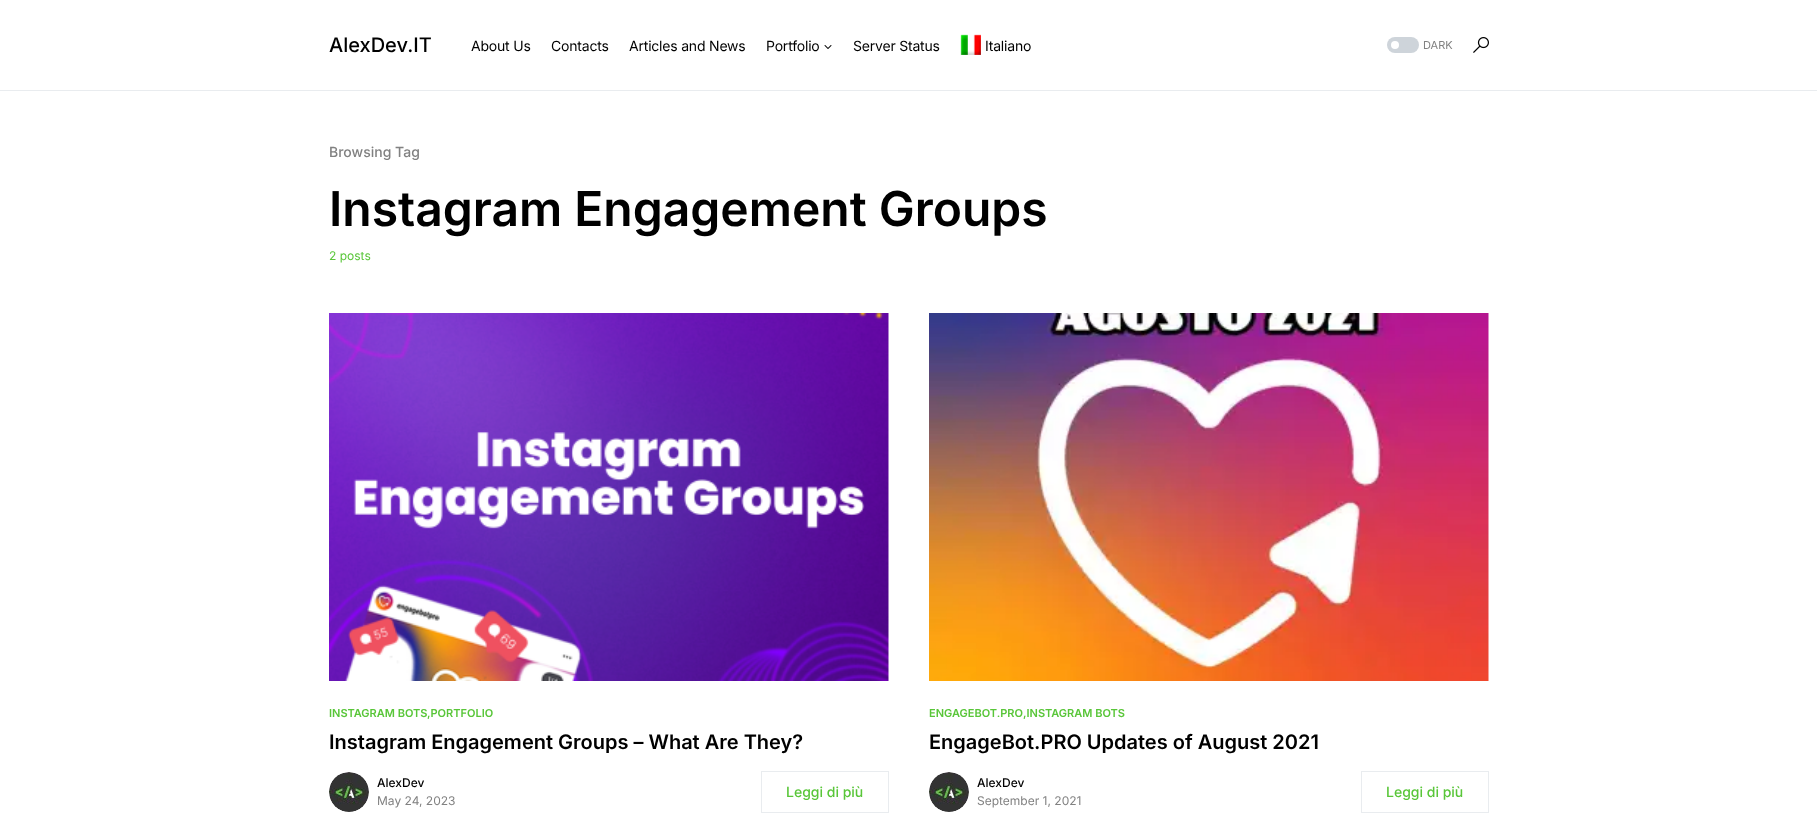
<svg xmlns="http://www.w3.org/2000/svg" xmlns:xlink="http://www.w3.org/1999/xlink" width="1817" height="832" viewBox="0 0 1817 832">
<style>
.cls-1{font:500 20px Inter;fill:#000000}
.cls-2{font:14px Inter;letter-spacing:-0.2px;fill:#000000}
.cls-3{font:11px Inter;fill:#818181}
.cls-4{font:500 14px Inter;fill:#818181}
.cls-5{font:600 48px Inter;fill:#000000}
.cls-6{font:12px Inter;fill:#59c639}
.cls-7{font:600 11px Inter;fill:#59c639}
.cls-8{font:600 20px Inter;fill:#000000}
.cls-9{font:500 12px Inter;fill:#000000}
.cls-10{font:12px Inter;fill:#818181}
.cls-11{font:500 14px Inter;fill:#59c639}
</style>
<rect width="100%" height="100%" fill="#ffffff"/>
<rect fill="#e9ecef" x="0" y="90" width="1817" height="1"/>
<image xlink:href="image0.png" x="824" y="45" width="8" height="4"/>
<image xlink:href="image1.png" x="960" y="34" width="21" height="21"/>
<rect fill="#ced4da" x="1387" y="37" width="32" height="16" rx="8"/>
<circle fill="#ffffff" cx="1395" cy="45" r="4"/>
<image xlink:href="image2.png" x="1473" y="37" width="16" height="16"/>
<image xlink:href="image3.png" x="329" y="313" width="560" height="368"/>
<image xlink:href="image4.png" x="329" y="772" width="40" height="40"/>
<rect fill="none" stroke="#e9ecef" x="761.5" y="771.5" width="127" height="41"/>
<image xlink:href="image5.png" x="929" y="313" width="560" height="368"/>
<image xlink:href="image4.png" x="929" y="772" width="40" height="40"/>
<rect fill="none" stroke="#e9ecef" x="1361.5" y="771.5" width="127" height="41"/>
<text class="cls-1" x="329" y="52">AlexDev.IT</text>
<text class="cls-2" x="471" y="51">About Us</text>
<text class="cls-2" x="551" y="51">Contacts</text>
<text class="cls-2" x="629" y="51">Articles and News</text>
<text class="cls-2" x="766" y="51">Portfolio</text>
<text class="cls-2" x="853" y="51">Server Status</text>
<text class="cls-2" x="985" y="51">Italiano</text>
<text class="cls-3" x="1423" y="49">DARK</text>
<text class="cls-4" x="329" y="157">Browsing Tag</text>
<text class="cls-5" x="329" y="226">Instagram Engagement Groups</text>
<text class="cls-6" x="329" y="260">2 posts</text>
<text class="cls-7" x="329" y="717">INSTAGRAM BOTS</text>
<text class="cls-7" x="427" y="717">,PORTFOLIO</text>
<text class="cls-8" x="329" y="749">Instagram Engagement Groups – What Are They?</text>
<text class="cls-9" x="377" y="787">AlexDev</text>
<text class="cls-10" x="377" y="805">May 24, 2023</text>
<text class="cls-11" x="786" y="797">Leggi di più</text>
<text class="cls-7" x="929" y="717">ENGAGEBOT.PRO</text>
<text class="cls-7" x="1023" y="717">,INSTAGRAM BOTS</text>
<text class="cls-8" x="929" y="749">EngageBot.PRO Updates of August 2021</text>
<text class="cls-9" x="977" y="787">AlexDev</text>
<text class="cls-10" x="977" y="805">September 1, 2021</text>
<text class="cls-11" x="1386" y="797">Leggi di più</text>
</svg>
